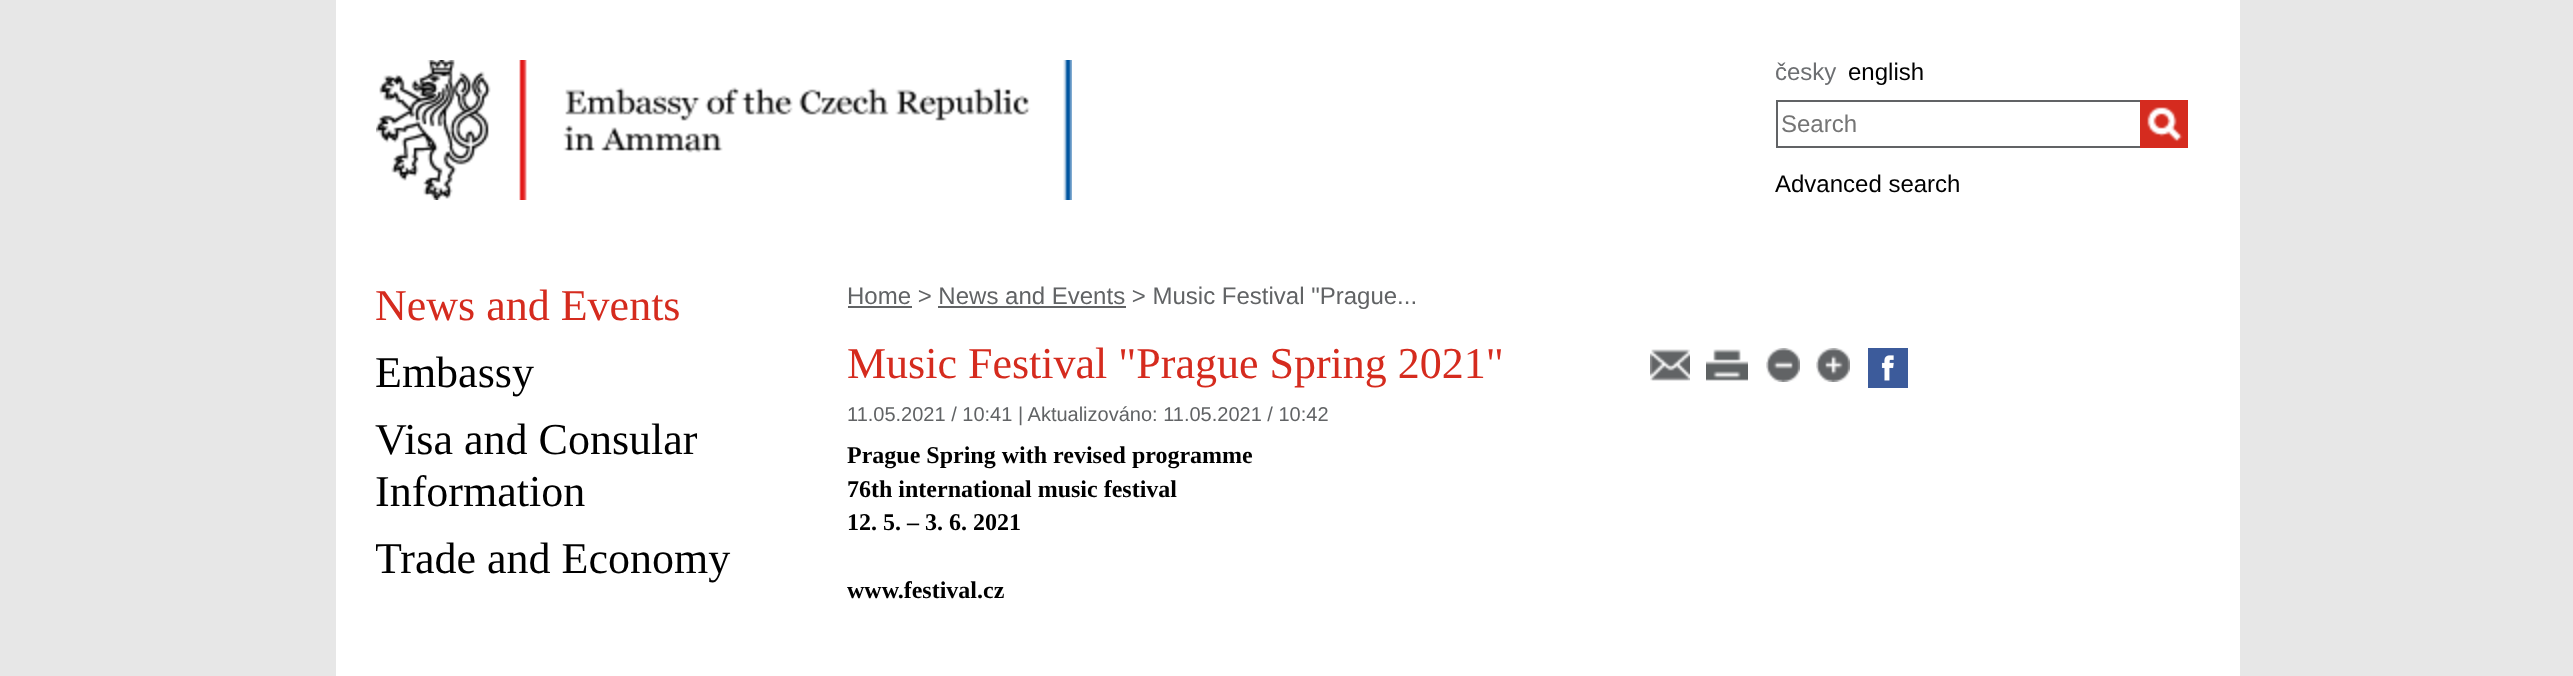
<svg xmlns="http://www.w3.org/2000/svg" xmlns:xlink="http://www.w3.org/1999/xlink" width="2573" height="676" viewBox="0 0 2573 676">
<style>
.cls-1{font:24px Liberation Sans;fill:#6d6f72}
.cls-2{font:24px Liberation Sans;fill:#000000}
.cls-3{font:24px Liberation Sans;fill:#757575}
.cls-4{font:44px Liberation Serif;fill:#d52b1e}
.cls-5{font:44px Liberation Serif;fill:#000000}
.cls-6{font:24px Liberation Sans;fill:#616365}
.cls-7{font:20px Liberation Sans;fill:#616365}
.cls-8{font:bold 24px Liberation Serif;fill:#000000}
</style>
<defs>
<clipPath id="clip1"><rect x="376" y="534" width="424" height="52"/></clipPath>
</defs>
<rect width="100%" height="100%" fill="#e7e7e7"/>
<rect fill="#ffffff" x="336" y="0" width="1904" height="676"/>
<image xlink:href="image0.png" x="376" y="60" width="696" height="140"/>
<rect fill="#616365" x="1776" y="100" width="364" height="2"/>
<rect fill="#616365" x="1776" y="146" width="364" height="2"/>
<rect fill="#616365" x="1776" y="100" width="2" height="48"/>
<image xlink:href="image1.png" x="2140" y="100" width="48" height="48"/>
<rect fill="#616365" x="848" y="306" width="64" height="2"/>
<rect fill="#616365" x="938" y="306" width="188" height="2"/>
<image xlink:href="image2.png" x="1650" y="349" width="40" height="32"/>
<image xlink:href="image3.png" x="1706" y="349" width="42" height="32"/>
<image xlink:href="image4.png" x="1766" y="348" width="34" height="34"/>
<image xlink:href="image5.png" x="1816" y="348" width="34" height="34"/>
<image xlink:href="image6.png" x="1868" y="348" width="40" height="40"/>
<text class="cls-1" x="1775" y="80">česky</text>
<text class="cls-2" x="1848" y="80">english</text>
<text class="cls-3" x="1781" y="132">Search</text>
<text class="cls-2" x="1775" y="192">Advanced search</text>
<text class="cls-4" x="375" y="320">News and Events</text>
<text class="cls-5"><tspan x="375" y="387">Embassy</tspan><tspan x="375" y="454">Visa and Consular</tspan><tspan x="375" y="506">Information</tspan></text>
<g clip-path="url(#clip1)">
<text class="cls-5" x="375" y="573">Trade and Economy</text>
</g>
<text class="cls-6" x="847" y="304">Home &gt; News and Events &gt; Music Festival "Prague...</text>
<text class="cls-4" x="847" y="378">Music Festival "Prague Spring 2021"</text>
<text class="cls-7" x="847" y="421">11.05.2021 / 10:41 | Aktualizováno: 11.05.2021 / 10:42</text>
<text class="cls-8"><tspan x="847" y="463">Prague Spring with revised programme</tspan><tspan x="847" y="497">76th international music festival</tspan><tspan x="847" y="530">12. 5. – 3. 6. 2021</tspan></text>
<text class="cls-8" x="847" y="598">www.festival.cz</text>
</svg>
